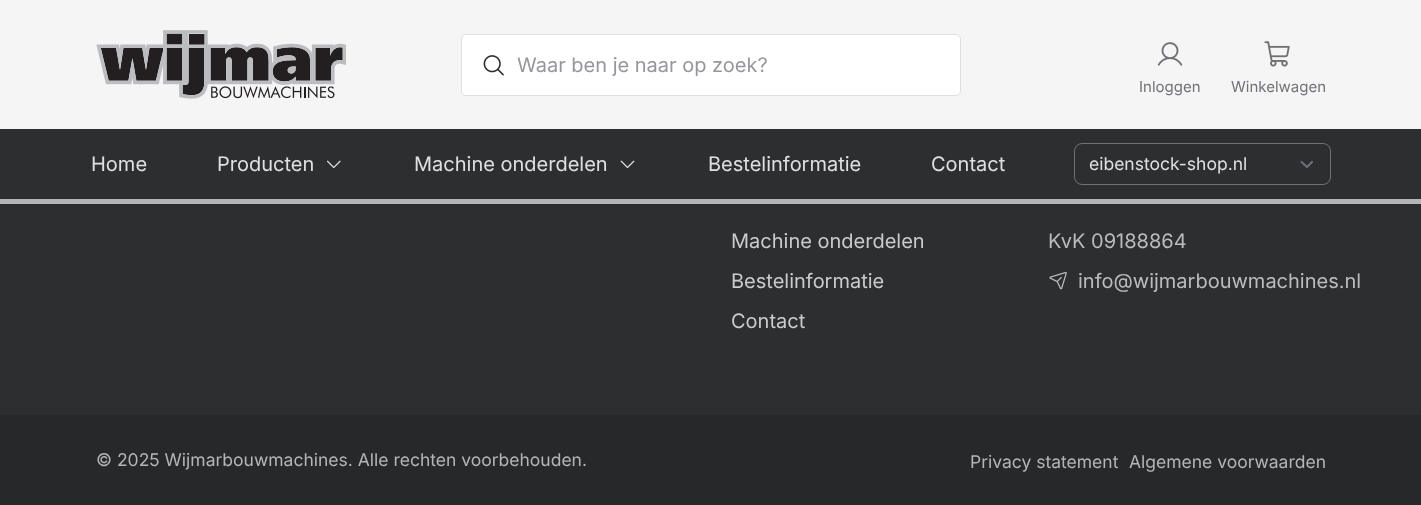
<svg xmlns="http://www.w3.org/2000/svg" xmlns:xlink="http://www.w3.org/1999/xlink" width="1421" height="505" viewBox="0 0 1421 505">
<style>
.cls-1{font:20px Inter;fill:#95979c}
.cls-2{font:15px Inter;fill:#717276}
.cls-3{font:20px Inter;fill:#dee0e1}
.cls-4{font:17.5px Inter;fill:#dee0e1}
.cls-5{font:20px Inter;fill:#cacbcd}
.cls-6{font:20px Inter;fill:#bbbcbd}
.cls-7{font:17.5px Inter;fill:#b3b5b8}
</style>
<defs>
<clipPath id="clip1"><rect x="518" y="53" width="408" height="25"/></clipPath>
</defs>
<rect width="100%" height="100%" fill="#2d2e2f"/>
<rect fill="#f5f5f6" x="0" y="0" width="1421" height="129"/>
<image xlink:href="image0.png" x="96" y="30" width="250" height="69"/>
<rect fill="#ffffff" stroke="#dee0e1" x="461.5" y="34.5" width="499" height="61" rx="4.5"/>
<image xlink:href="image1.png" x="483" y="55" width="21" height="21"/>
<image xlink:href="image2.png" x="1157" y="42" width="26" height="24"/>
<image xlink:href="image3.png" x="1264" y="41" width="26" height="26"/>
<rect fill="#b3b5b8" x="0" y="199" width="1421" height="5"/>
<image xlink:href="image4.png" x="326" y="160" width="15" height="9"/>
<image xlink:href="image5.png" x="620" y="160" width="15" height="9"/>
<path fill="none" stroke="#6b7280" stroke-width="2" stroke-linecap="round" stroke-linejoin="round" d="M1301.5 162L1307 167L1312 162"/>
<rect fill="none" stroke="#717276" x="1074.5" y="143.5" width="256" height="41" rx="7.5"/>
<image xlink:href="image6.png" x="1049" y="271" width="18" height="19"/>
<rect fill="#27282a" x="0" y="415" width="1421" height="90"/>
<g clip-path="url(#clip1)">
<text class="cls-1" x="517" y="72">Waar ben je naar op zoek?</text>
</g>
<text class="cls-2" x="1139" y="92">Inloggen</text>
<text class="cls-2" x="1231" y="92">Winkelwagen</text>
<text class="cls-3" x="91" y="171">Home</text>
<text class="cls-3" x="217" y="171">Producten</text>
<text class="cls-3" x="414" y="171">Machine onderdelen</text>
<text class="cls-3" x="708" y="171">Bestelinformatie</text>
<text class="cls-3" x="931" y="171">Contact</text>
<text class="cls-4" x="1089" y="170">eibenstock-shop.nl</text>
<text class="cls-5" x="731" y="248">Machine onderdelen</text>
<text class="cls-5" x="731" y="288">Bestelinformatie</text>
<text class="cls-5" x="731" y="328">Contact</text>
<text class="cls-6" x="1048" y="248">KvK 09188864</text>
<text class="cls-6" x="1078" y="288">info@wijmarbouwmachines.nl</text>
<text class="cls-7" x="96" y="466">© 2025 Wijmarbouwmachines. Alle rechten voorbehouden.</text>
<text class="cls-7" x="970" y="468">Privacy statement</text>
<text class="cls-7" x="1129" y="468">Algemene voorwaarden</text>
</svg>
